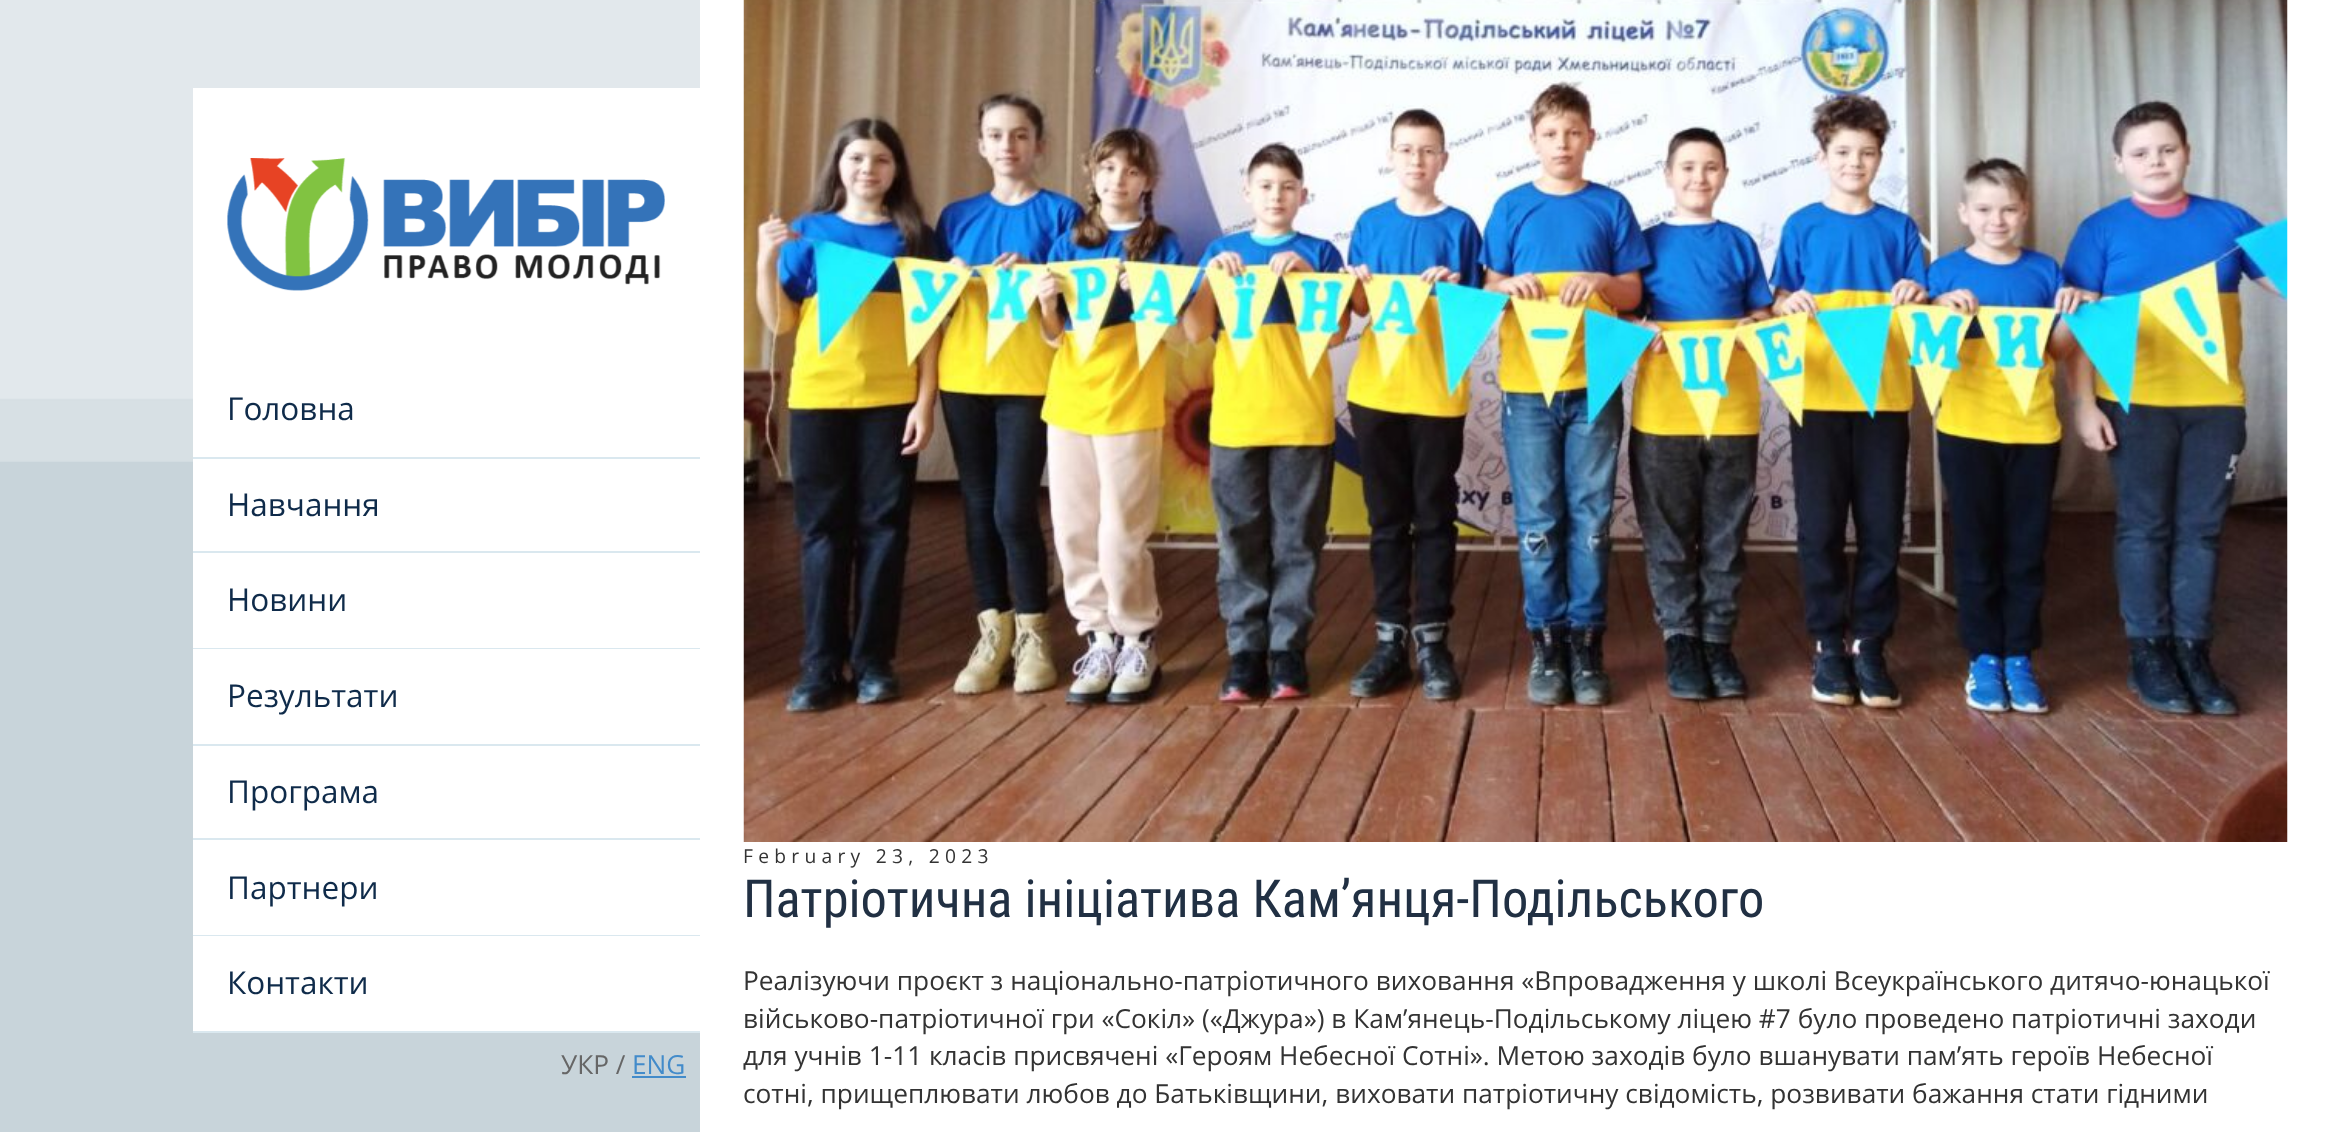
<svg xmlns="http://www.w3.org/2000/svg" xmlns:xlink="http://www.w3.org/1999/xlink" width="2331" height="1132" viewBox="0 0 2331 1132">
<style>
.cls-1{font:31.5px Open Sans;fill:#0f2b4a}
.cls-2{font:26.25px Open Sans;fill:#666666}
.cls-3{font:26.25px Open Sans;fill:#428bca}
.cls-4{font:19.25px Open Sans;letter-spacing:5.25px;fill:#333333}
.cls-5{font:52.5px Roboto Condensed;fill:#213043}
.cls-6{font:26.25px Open Sans;fill:#333333}
</style>
<rect width="100%" height="100%" fill="#c8d4da"/>
<image xlink:href="image0.png" x="0" y="0" width="700" height="462"/>
<rect fill="#ffffff" x="193" y="88" width="507" height="369"/>
<image xlink:href="image1.png" x="227" y="158" width="438" height="133"/>
<rect fill="#dae8ef" x="193" y="457" width="507" height="2"/>
<rect fill="#ffffff" x="193" y="459" width="507" height="92"/>
<rect fill="#dae8ef" x="193" y="551" width="507" height="2"/>
<rect fill="#ffffff" x="193" y="553" width="507" height="95"/>
<rect fill="#dae8ef" x="193" y="648" width="507" height="1"/>
<rect fill="#ffffff" x="193" y="649" width="507" height="95"/>
<rect fill="#dae8ef" x="193" y="744" width="507" height="2"/>
<rect fill="#ffffff" x="193" y="746" width="507" height="92"/>
<rect fill="#dae8ef" x="193" y="838" width="507" height="2"/>
<rect fill="#ffffff" x="193" y="840" width="507" height="95"/>
<rect fill="#dae8ef" x="193" y="935" width="507" height="1"/>
<rect fill="#ffffff" x="193" y="936" width="507" height="95"/>
<rect fill="#dae8ef" x="193" y="1031" width="507" height="2"/>
<rect fill="#428bca" x="632" y="1076" width="54" height="2"/>
<rect fill="#ffffff" x="700" y="0" width="1631" height="1132"/>
<image xlink:href="image2.png" x="743" y="0" width="1545" height="842"/>
<text class="cls-1" x="227" y="420">Головна</text>
<text class="cls-1" x="227" y="516">Навчання</text>
<text class="cls-1" x="227" y="611">Новини</text>
<text class="cls-1" x="227" y="707">Результати</text>
<text class="cls-1" x="227" y="803">Програма</text>
<text class="cls-1" x="227" y="899">Партнери</text>
<text class="cls-1" x="227" y="994">Контакти</text>
<text class="cls-2" x="561" y="1074">УКР /</text>
<text class="cls-3" x="632" y="1074">ENG</text>
<text class="cls-4" x="743" y="863">February 23, 2023</text>
<text class="cls-5" x="743" y="917">Патріотична ініціатива Кам’янця-Подільського</text>
<text class="cls-6"><tspan x="743" y="990">Реалізуючи проєкт з національно-патріотичного виховання «Впровадження у школі Всеукраїнського дитячо-юнацької</tspan><tspan x="743" y="1028">військово-патріотичної гри «Сокіл» («Джура») в Кам’янець-Подільському ліцею #7 було проведено патріотичні заходи</tspan><tspan x="743" y="1065">для учнів 1-11 класів присвячені «Героям Небесної Сотні». Метою заходів було вшанувати пам’ять героїв Небесної</tspan><tspan x="743" y="1103">сотні, прищеплювати любов до Батьківщини, виховати патріотичну свідомість, розвивати бажання стати гідними</tspan></text>
</svg>
